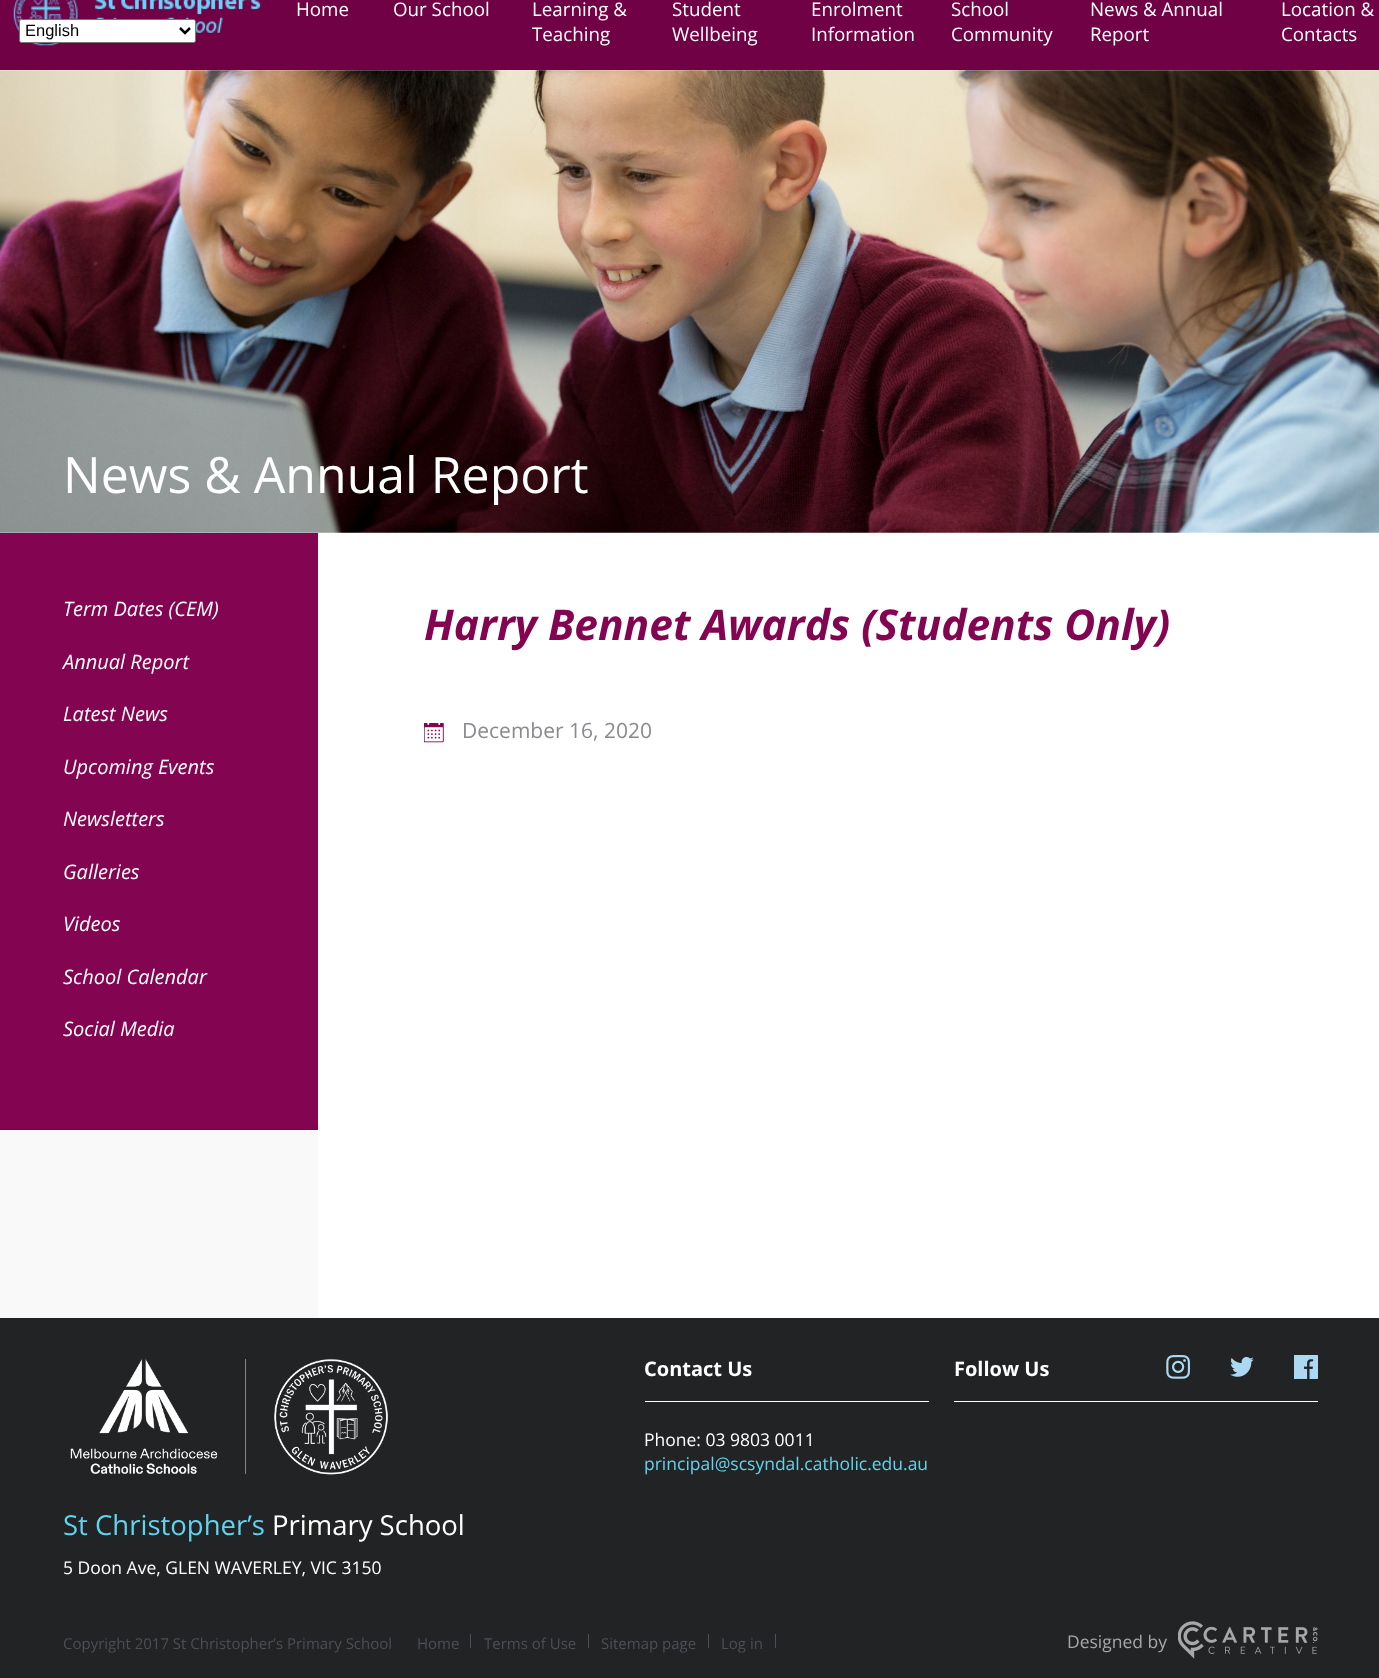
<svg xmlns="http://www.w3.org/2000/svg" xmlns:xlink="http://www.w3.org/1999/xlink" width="1379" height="1678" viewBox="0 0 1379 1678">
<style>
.cls-1{font:16.5px Liberation Sans;fill:#000000}
.cls-2{font:18.75px Open Sans;fill:#ffffff}
.cls-3{font:50px Open Sans;fill:#ffffff}
.cls-4{font:italic 20px Open Sans;fill:#ffffff}
.cls-5{font:italic bold 42.5px Open Sans;fill:#830451}
.cls-6{font:21px Open Sans;fill:#8a8a8f}
.cls-7{font:bold 20px Open Sans;fill:#ffffff}
.cls-8{font:17.5px Open Sans;fill:#ffffff}
.cls-9{font:17.5px Open Sans;fill:#60d3ee}
.cls-10{font:27.5px Open Sans;fill:#60d3ee}
.cls-11{font:27.5px Open Sans;fill:#ffffff}
.cls-12{font:15px Open Sans;fill:#4b4f56}
.cls-13{font:17.5px Open Sans;fill:#a7a7a7}
</style>
<rect width="100%" height="100%" fill="#ffffff"/>
<rect fill="#700145" x="0" y="0" width="1379" height="70"/>
<image xlink:href="image0.png" x="13" y="0" width="248" height="46"/>
<rect fill="#ffffff" stroke="#767676" x="19.5" y="19.5" width="176" height="23" rx="2"/>
<path fill="none" stroke="#000000" stroke-width="2.5" d="M180 28L185 33L190 28"/>
<image xlink:href="image1.png" x="0" y="70" width="1379" height="463"/>
<rect fill="#830451" x="0" y="533" width="318" height="597"/>
<image xlink:href="image2.png" x="424" y="723" width="20" height="20"/>
<rect fill="#f9f9f9" x="0" y="1130" width="318" height="188"/>
<rect fill="#222324" x="0" y="1318" width="1379" height="360"/>
<rect fill="#ffffff" x="645" y="1401" width="284" height="1"/>
<rect fill="#ffffff" x="954" y="1401" width="364" height="1"/>
<image xlink:href="image3.png" x="1166" y="1355" width="24" height="24"/>
<image xlink:href="image4.png" x="1230" y="1357" width="24" height="20"/>
<image xlink:href="image5.png" x="1294" y="1355" width="24" height="24"/>
<image xlink:href="image6.png" x="70" y="1359" width="318" height="116"/>
<rect fill="#4b4f56" x="470" y="1634" width="1" height="14"/>
<rect fill="#4b4f56" x="588" y="1634" width="1" height="14"/>
<rect fill="#4b4f56" x="708" y="1634" width="1" height="14"/>
<rect fill="#4b4f56" x="775" y="1634" width="1" height="14"/>
<image xlink:href="image7.png" x="1178" y="1621" width="140" height="38"/>
<text class="cls-1" x="25" y="36">English</text>
<text class="cls-2" x="296" y="16">Home</text>
<text class="cls-2" x="393" y="16">Our School</text>
<text class="cls-2"><tspan x="532" y="16">Learning &amp;</tspan><tspan x="532" y="41">Teaching</tspan></text>
<text class="cls-2"><tspan x="672" y="16">Student</tspan><tspan x="672" y="41">Wellbeing</tspan></text>
<text class="cls-2"><tspan x="811" y="16">Enrolment</tspan><tspan x="811" y="41">Information</tspan></text>
<text class="cls-2"><tspan x="951" y="16">School</tspan><tspan x="951" y="41">Community</tspan></text>
<text class="cls-2"><tspan x="1090" y="16">News &amp; Annual</tspan><tspan x="1090" y="41">Report</tspan></text>
<text class="cls-2"><tspan x="1281" y="16">Location &amp;</tspan><tspan x="1281" y="41">Contacts</tspan></text>
<text class="cls-3" x="63" y="493">News &amp; Annual Report</text>
<text class="cls-4" x="63" y="616">Term Dates (CEM)</text>
<text class="cls-4" x="63" y="669">Annual Report</text>
<text class="cls-4" x="63" y="721">Latest News</text>
<text class="cls-4" x="63" y="774">Upcoming Events</text>
<text class="cls-4" x="63" y="826">Newsletters</text>
<text class="cls-4" x="63" y="879">Galleries</text>
<text class="cls-4" x="63" y="931">Videos</text>
<text class="cls-4" x="63" y="984">School Calendar</text>
<text class="cls-4" x="63" y="1036">Social Media</text>
<text class="cls-5" x="424" y="640">Harry Bennet Awards (Students Only)</text>
<text class="cls-6" x="462" y="738">December 16, 2020</text>
<text class="cls-7" x="644" y="1376">Contact Us</text>
<text class="cls-8" x="644" y="1446">Phone: 03 9803 0011</text>
<text class="cls-9" x="644" y="1470">principal@scsyndal.catholic.edu.au</text>
<text class="cls-7" x="954" y="1376">Follow Us</text>
<text class="cls-10" x="63" y="1535">St Christopher’s</text>
<text class="cls-11" x="272" y="1535">Primary School</text>
<text class="cls-8" x="63" y="1574">5 Doon Ave, GLEN WAVERLEY, VIC 3150</text>
<text class="cls-12" x="63" y="1649">Copyright 2017 St Christopher’s Primary School</text>
<text class="cls-12" x="417" y="1649">Home</text>
<text class="cls-12" x="484" y="1649">Terms of Use</text>
<text class="cls-12" x="601" y="1649">Sitemap page</text>
<text class="cls-12" x="721" y="1649">Log in</text>
<text class="cls-13" x="1067" y="1648">Designed by</text>
</svg>
